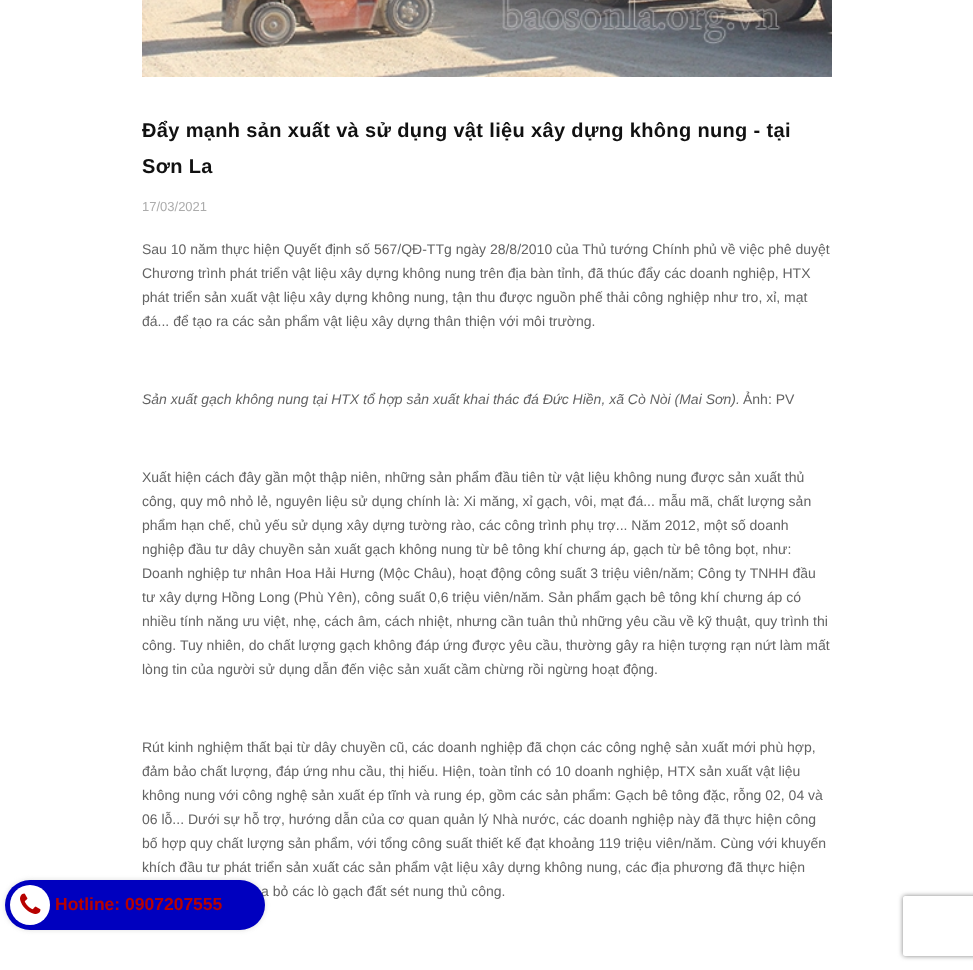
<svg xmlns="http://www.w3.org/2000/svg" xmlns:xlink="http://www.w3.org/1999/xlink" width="973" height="970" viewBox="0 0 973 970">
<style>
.cls-1{font:bold 20px Liberation Sans;letter-spacing:0.35px;fill:#111111}
.cls-2{font:13px Liberation Sans;fill:#acacac}
.cls-3{font:14px Liberation Sans;fill:#636363}
.cls-4{font:italic 14px Liberation Sans;fill:#636363}
.cls-5{font:bold 17.5px Liberation Sans;fill:#b70100}
</style>
<defs>
<clipPath id="clip1"><path d="M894 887H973V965H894ZM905 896H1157C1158 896 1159 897 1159 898V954C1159 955 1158 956 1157 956H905C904 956 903 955 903 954V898C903 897 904 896 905 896Z" clip-rule="evenodd"/></clipPath>
</defs>
<rect width="100%" height="100%" fill="#ffffff"/>
<image xlink:href="image0.png" x="142" y="0" width="690" height="77"/>
<rect fill="#dddddd" filter="blur(2.5px)" x="5" y="880" width="260" height="50" rx="25"/>
<g clip-path="url(#clip1)">
<rect fill="#808080" filter="blur(2.5px)" x="903" y="896" width="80" height="60" rx="2"/>
</g>
<text class="cls-1"><tspan x="142" y="137">Đẩy mạnh sản xuất và sử dụng vật liệu xây dựng không nung - tại</tspan><tspan x="142" y="173">Sơn La</tspan></text>
<text class="cls-2" x="142" y="211">17/03/2021</text>
<text class="cls-3"><tspan x="142" y="254">Sau 10 năm thực hiện Quyết định số 567/QĐ-TTg ngày 28/8/2010 của Thủ tướng Chính phủ về việc phê duyệt</tspan><tspan x="142" y="278">Chương trình phát triển vật liệu xây dựng không nung trên địa bàn tỉnh, đã thúc đẩy các doanh nghiệp, HTX</tspan><tspan x="142" y="302">phát triển sản xuất vật liệu xây dựng không nung, tận thu được nguồn phế thải công nghiệp như tro, xỉ, mạt</tspan><tspan x="142" y="326">đá... để tạo ra các sản phẩm vật liệu xây dựng thân thiện với môi trường.</tspan></text>
<text class="cls-4" x="142" y="404">Sản xuất gạch không nung tại HTX tổ hợp sản xuất khai thác đá Đức Hiền, xã Cò Nòi (Mai Sơn).</text>
<text class="cls-3" x="743" y="404">Ảnh: PV</text>
<text class="cls-3"><tspan x="142" y="482">Xuất hiện cách đây gần một thập niên, những sản phẩm đầu tiên từ vật liệu không nung được sản xuất thủ</tspan><tspan x="142" y="506">công, quy mô nhỏ lẻ, nguyên liệu sử dụng chính là: Xi măng, xỉ gạch, vôi, mạt đá... mẫu mã, chất lượng sản</tspan><tspan x="142" y="530">phẩm hạn chế, chủ yếu sử dụng xây dựng tường rào, các công trình phụ trợ... Năm 2012, một số doanh</tspan><tspan x="142" y="554">nghiệp đầu tư dây chuyền sản xuất gạch không nung từ bê tông khí chưng áp, gạch từ bê tông bọt, như:</tspan><tspan x="142" y="578">Doanh nghiệp tư nhân Hoa Hải Hưng (Mộc Châu), hoạt động công suất 3 triệu viên/năm; Công ty TNHH đầu</tspan><tspan x="142" y="602">tư xây dựng Hồng Long (Phù Yên), công suất 0,6 triệu viên/năm. Sản phẩm gạch bê tông khí chưng áp có</tspan><tspan x="142" y="626">nhiều tính năng ưu việt, nhẹ, cách âm, cách nhiệt, nhưng cần tuân thủ những yêu cầu về kỹ thuật, quy trình thi</tspan><tspan x="142" y="650">công. Tuy nhiên, do chất lượng gạch không đáp ứng được yêu cầu, thường gây ra hiện tượng rạn nứt làm mất</tspan><tspan x="142" y="674">lòng tin của người sử dụng dẫn đến việc sản xuất cầm chừng rồi ngừng hoạt động.</tspan></text>
<text class="cls-3"><tspan x="142" y="752">Rút kinh nghiệm thất bại từ dây chuyền cũ, các doanh nghiệp đã chọn các công nghệ sản xuất mới phù hợp,</tspan><tspan x="142" y="776">đảm bảo chất lượng, đáp ứng nhu cầu, thị hiếu. Hiện, toàn tỉnh có 10 doanh nghiệp, HTX sản xuất vật liệu</tspan><tspan x="142" y="800">không nung với công nghệ sản xuất ép tĩnh và rung ép, gồm các sản phẩm: Gạch bê tông đặc, rỗng 02, 04 và</tspan><tspan x="142" y="824">06 lỗ... Dưới sự hỗ trợ, hướng dẫn của cơ quan quản lý Nhà nước, các doanh nghiệp này đã thực hiện công</tspan><tspan x="142" y="848">bố hợp quy chất lượng sản phẩm, với tổng công suất thiết kế đạt khoảng 119 triệu viên/năm. Cùng với khuyến</tspan><tspan x="142" y="872">khích đầu tư phát triển sản xuất các sản phẩm vật liệu xây dựng không nung, các địa phương đã thực hiện</tspan></text>
<text class="cls-3" x="261" y="896">a bỏ các lò gạch đất sét nung thủ công.</text>
<rect fill="#0000bf" x="5" y="880" width="260" height="50" rx="25"/>
<circle fill="#ffffff" cx="30" cy="905" r="20"/>
<image xlink:href="image1.png" x="20" y="893" width="21" height="21"/>
<text class="cls-5" x="55" y="910">Hotline: 0907207555</text>
</svg>
